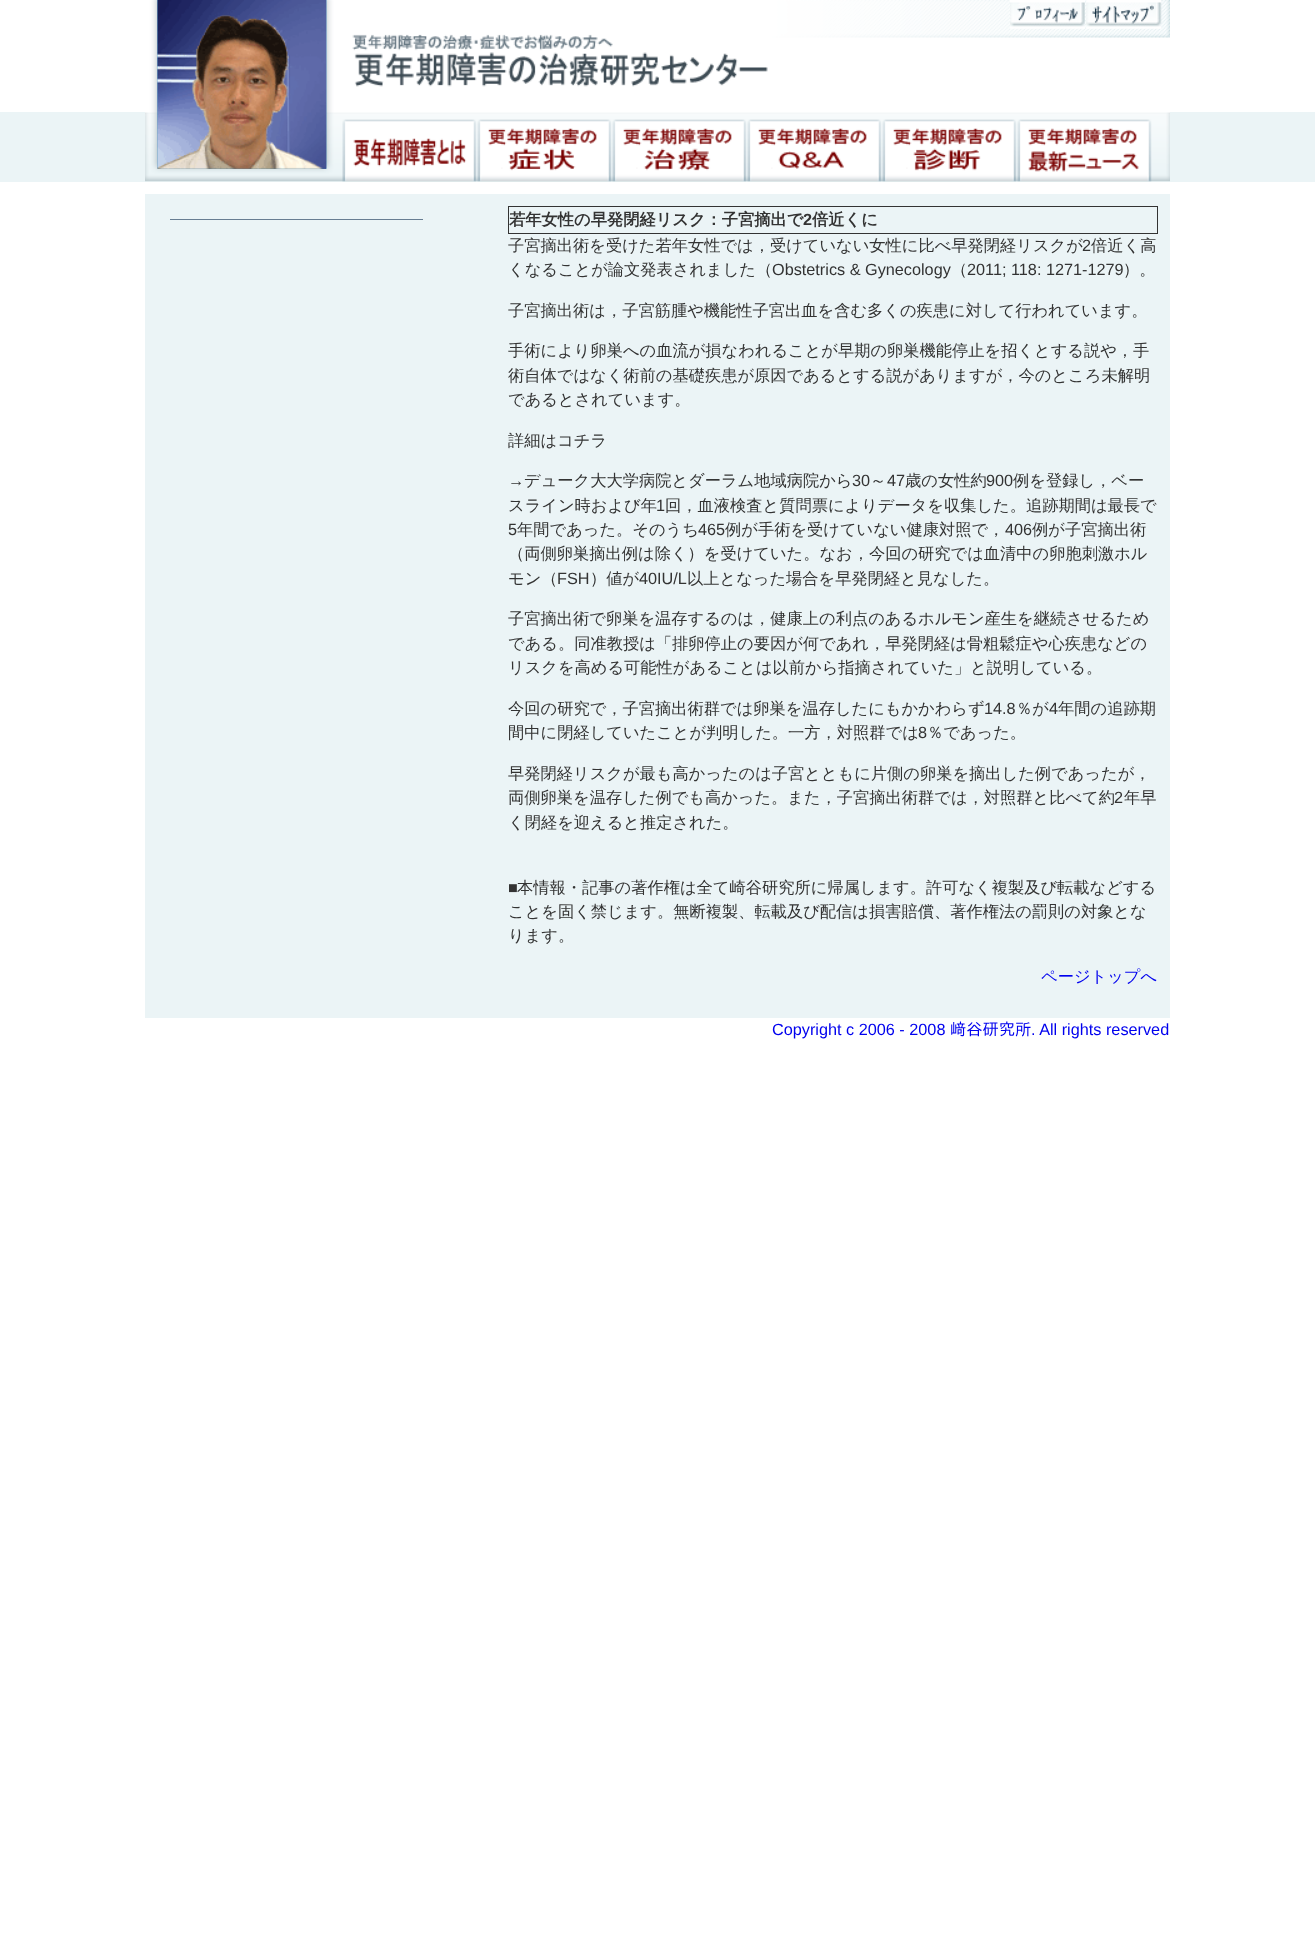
<svg xmlns="http://www.w3.org/2000/svg" xmlns:xlink="http://www.w3.org/1999/xlink" width="1315" height="1958" viewBox="0 0 1315 1958">
<style>
.cls-1{font:bold 16.25px WenQuanYi Zen Hei;fill:#333333}
.cls-2{font:bold 16.25px Liberation Sans;fill:#333333}
.cls-3{font:500 16.25px WenQuanYi Zen Hei;fill:#333333}
.cls-4{font:16.25px Liberation Sans;fill:#333333}
.cls-5{font:500 16.25px WenQuanYi Zen Hei;fill:#0000ee}
.cls-6{font:16.25px Liberation Sans;fill:#0000ee}
.cls-7{font:16.25px IPAPGothic;fill:#0000ee}
</style>
<rect width="100%" height="100%" fill="#ffffff"/>
<rect fill="#ebf4f6" x="0" y="112" width="1315" height="70"/>
<image xlink:href="image0.png" x="145" y="0" width="1025" height="182"/>
<image xlink:href="image1.png" x="157" y="0" width="170" height="169"/>
<image xlink:href="image2.png" x="1010" y="0" width="75" height="29"/>
<image xlink:href="image3.png" x="1086" y="0" width="76" height="29"/>
<image xlink:href="image4.png" x="352" y="34" width="416" height="53"/>
<image xlink:href="image5.png" x="342" y="119" width="135" height="63"/>
<image xlink:href="image6.png" x="477" y="119" width="135" height="63"/>
<image xlink:href="image7.png" x="612" y="119" width="135" height="63"/>
<image xlink:href="image8.png" x="747" y="119" width="135" height="63"/>
<image xlink:href="image9.png" x="882" y="119" width="135" height="63"/>
<image xlink:href="image10.png" x="1017" y="119" width="135" height="63"/>
<rect fill="#ebf4f6" x="145" y="194" width="1025" height="824"/>
<rect fill="#677d92" x="170" y="219" width="253" height="1"/>
<rect fill="none" stroke="#333333" x="508.5" y="206.5" width="649" height="27"/>
<text class="cls-1" x="509" y="225">若年女性の早発閉経リスク：子宮摘出で</text>
<text class="cls-2" x="803" y="225">2</text>
<text class="cls-1" x="812" y="225">倍近くに</text>
<text class="cls-3" x="508" y="251">子宮摘出術を受けた若年女性では，受けていない女性に比べ早発閉経リスクが</text>
<text class="cls-4" x="1082" y="251">2</text>
<text class="cls-3" x="1091" y="251">倍近く高</text>
<text class="cls-3" x="508" y="275">くなることが論文発表されました（</text>
<text class="cls-4" x="772" y="275">Obstetrics &amp; Gynecology</text>
<text class="cls-3" x="951" y="275">（</text>
<text class="cls-4" x="967" y="275">2011; 118: 1271-1279</text>
<text class="cls-3" x="1123" y="275">）。</text>
<text class="cls-3" x="508" y="316">子宮摘出術は，子宮筋腫や機能性子宮出血を含む多くの疾患に対して行われています。</text>
<text class="cls-3"><tspan x="508" y="356">手術により卵巣への血流が損なわれることが早期の卵巣機能停止を招くとする説や，手</tspan><tspan x="508" y="381">術自体ではなく術前の基礎疾患が原因であるとする説がありますが，今のところ未解明</tspan><tspan x="508" y="405">であるとされています。</tspan></text>
<text class="cls-3" x="508" y="446">詳細はコチラ</text>
<text class="cls-4" x="508" y="486">→</text>
<text class="cls-3" x="524" y="486">デューク大大学病院とダーラム地域病院から</text>
<text class="cls-4" x="852" y="486">30</text>
<text class="cls-3" x="870" y="486">～</text>
<text class="cls-4" x="887" y="486">47</text>
<text class="cls-3" x="905" y="486">歳の女性約</text>
<text class="cls-4" x="986" y="486">900</text>
<text class="cls-3" x="1013" y="486">例を登録し，ベー</text>
<text class="cls-3" x="508" y="511">スライン時および年</text>
<text class="cls-4" x="656" y="511">1</text>
<text class="cls-3" x="665" y="511">回，血液検査と質問票によりデータを収集した。追跡期間は最長で</text>
<text class="cls-4" x="508" y="535">5</text>
<text class="cls-3" x="517" y="535">年間であった。そのうち</text>
<text class="cls-4" x="698" y="535">465</text>
<text class="cls-3" x="725" y="535">例が手術を受けていない健康対照で，</text>
<text class="cls-4" x="1005" y="535">406</text>
<text class="cls-3" x="1032" y="535">例が子宮摘出術</text>
<text class="cls-3"><tspan x="508" y="559">（両側卵巣摘出例は除く）を受けていた。なお，今回の研究では血清中の卵胞刺激ホル</tspan><tspan x="508" y="584">モン（</tspan></text>
<text class="cls-4" x="557" y="584">FSH</text>
<text class="cls-3" x="590" y="584">）値が</text>
<text class="cls-4" x="639" y="584">40IU/L</text>
<text class="cls-3" x="687" y="584">以上となった場合を早発閉経と見なした。</text>
<text class="cls-3"><tspan x="508" y="624">子宮摘出術で卵巣を温存するのは，健康上の利点のあるホルモン産生を継続させるため</tspan><tspan x="508" y="649">である。同准教授は「排卵停止の要因が何であれ，早発閉経は骨粗鬆症や心疾患などの</tspan><tspan x="508" y="673">リスクを高める可能性があることは以前から指摘されていた」と説明している。</tspan></text>
<text class="cls-3" x="508" y="714">今回の研究で，子宮摘出術群では卵巣を温存したにもかかわらず</text>
<text class="cls-4" x="984" y="714">14.8</text>
<text class="cls-3" x="1016" y="714">％が</text>
<text class="cls-4" x="1049" y="714">4</text>
<text class="cls-3" x="1058" y="714">年間の追跡期</text>
<text class="cls-3" x="508" y="738">間中に閉経していたことが判明した。一方，対照群では</text>
<text class="cls-4" x="918" y="738">8</text>
<text class="cls-3" x="927" y="738">％であった。</text>
<text class="cls-3"><tspan x="508" y="779">早発閉経リスクが最も高かったのは子宮とともに片側の卵巣を摘出した例であったが，</tspan><tspan x="508" y="803">両側卵巣を温存した例でも高かった。また，子宮摘出術群では，対照群と比べて約</tspan></text>
<text class="cls-4" x="1114" y="803">2</text>
<text class="cls-3" x="1124" y="803">年早</text>
<text class="cls-3" x="508" y="828">く閉経を迎えると推定された。</text>
<text class="cls-4" x="508" y="893">■</text>
<text class="cls-3" x="517" y="893">本情報・記事の著作権は全て崎谷研究所に帰属します。許可なく複製及び転載などする</text>
<text class="cls-3"><tspan x="508" y="917">ことを固く禁じます。無断複製、転載及び配信は損害賠償、著作権法の罰則の対象とな</tspan><tspan x="508" y="941">ります。</tspan></text>
<text class="cls-5" x="1041" y="982">ページトップへ</text>
<text class="cls-6" x="772" y="1035">Copyright c 2006 - 2008</text>
<text class="cls-7" x="950" y="1035">﨑谷研究所</text>
<text class="cls-6" x="1031" y="1035">. All rights reserved</text>
</svg>
